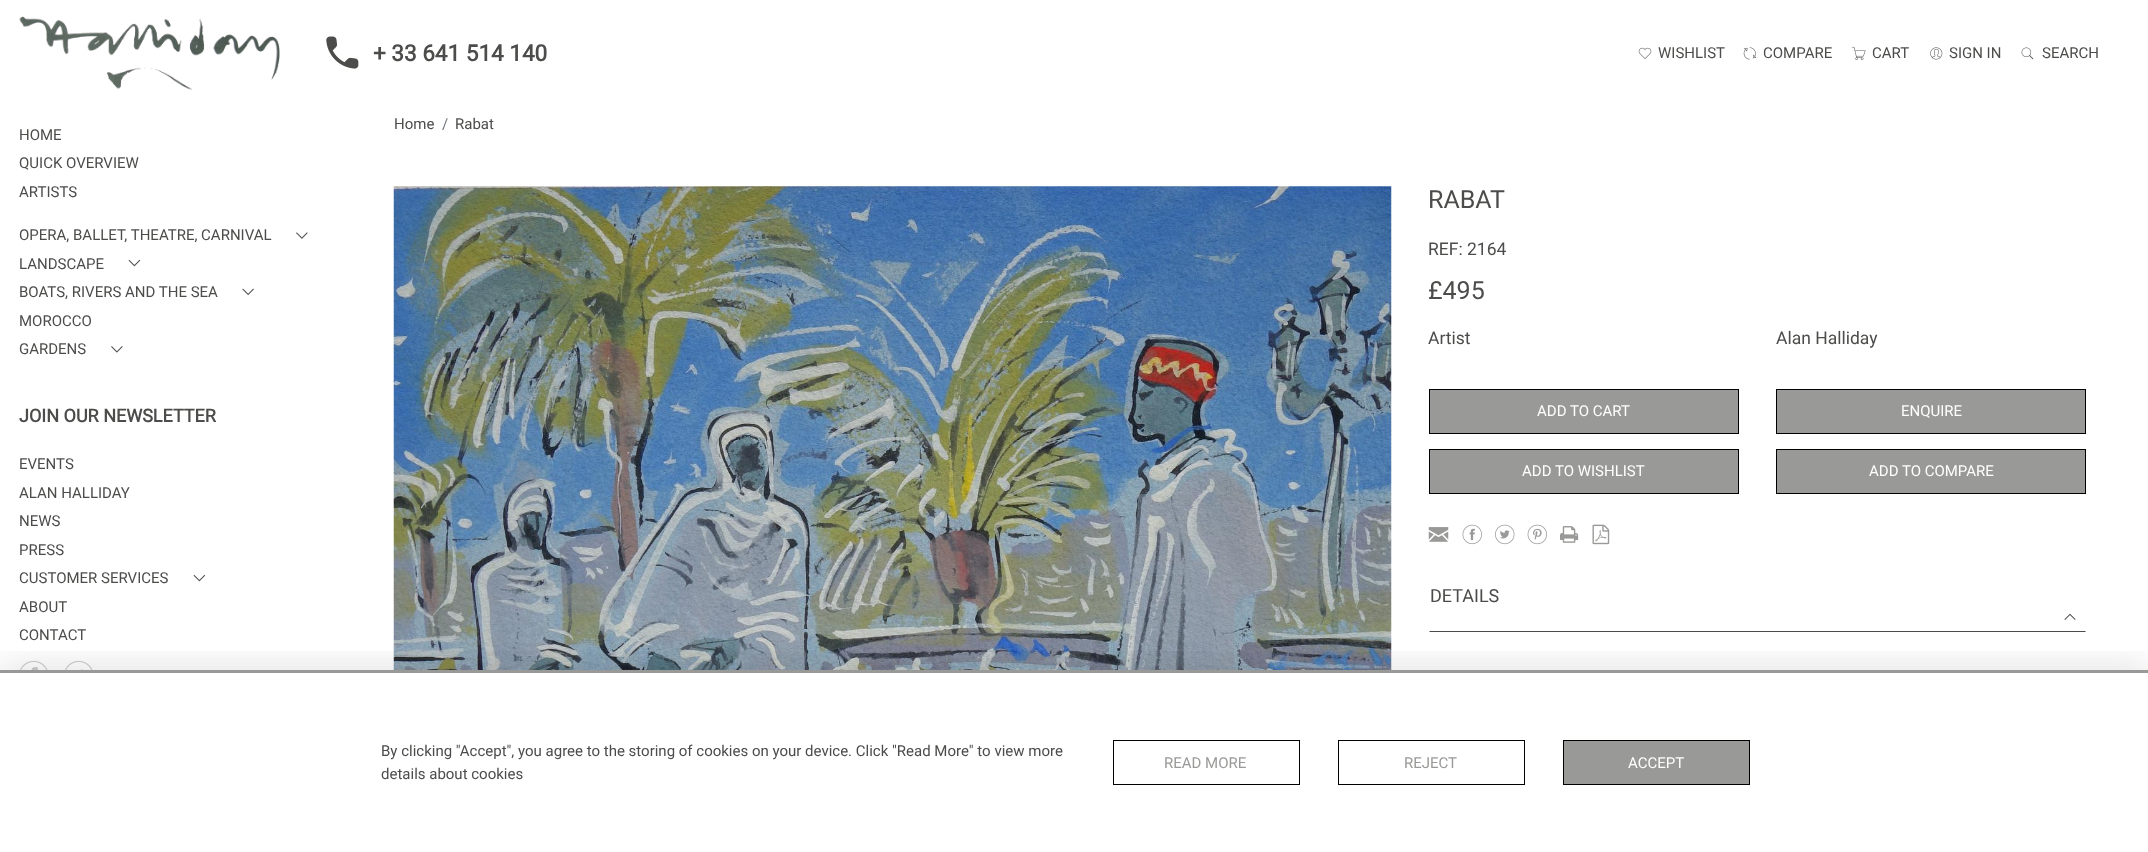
<svg xmlns="http://www.w3.org/2000/svg" xmlns:xlink="http://www.w3.org/1999/xlink" width="2148" height="852" viewBox="0 0 2148 852">
<style>
.cls-1{font:bold 22.5px Roboto;fill:#4c4c4b}
.cls-2{font:15px Roboto;fill:#4c4c4b}
.cls-3{font:bold 18px Roboto;fill:#4c4c4b}
.cls-4{font:15px Roboto;fill:#6c757d}
.cls-5{font:25px Roboto;fill:#4c4c4b}
.cls-6{font:17.5px Roboto;fill:#4c4c4b}
.cls-7{font:15px Roboto;fill:#ffffff}
.cls-8{font:18px Roboto;fill:#4c4c4b}
.cls-9{font:15px Roboto;fill:#999998}
</style>
<defs>
<clipPath id="clip1"><rect x="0" y="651" width="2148" height="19"/></clipPath>
</defs>
<rect width="100%" height="100%" fill="#ffffff"/>
<image xlink:href="image0.png" x="19" y="16" width="261" height="74"/>
<image xlink:href="image1.png" x="326" y="36" width="33" height="33"/>
<image xlink:href="image2.png" x="1638" y="47" width="14" height="12"/>
<image xlink:href="image3.png" x="1743" y="47" width="14" height="13"/>
<image xlink:href="image4.png" x="1851" y="46" width="15" height="14"/>
<image xlink:href="image5.png" x="1930" y="47" width="13" height="13"/>
<image xlink:href="image6.png" x="2021" y="47" width="13" height="13"/>
<image xlink:href="image7.png" x="296" y="232" width="12" height="7"/>
<image xlink:href="image8.png" x="128" y="259" width="13" height="8"/>
<image xlink:href="image9.png" x="242" y="288" width="12" height="8"/>
<image xlink:href="image10.png" x="111" y="346" width="12" height="7"/>
<image xlink:href="image8.png" x="193" y="574" width="13" height="8"/>
<image xlink:href="image11.png" x="20" y="660" width="28" height="10"/>
<image xlink:href="image12.png" x="65" y="660" width="28" height="10"/>
<image xlink:href="image13.png" x="393" y="186" width="999" height="484"/>
<rect fill="#999998" stroke="#000000" x="1429.5" y="389.5" width="309" height="44"/>
<rect fill="#999998" stroke="#000000" x="1776.5" y="389.5" width="309" height="44"/>
<rect fill="#999998" stroke="#000000" x="1429.5" y="449.5" width="309" height="44"/>
<rect fill="#999998" stroke="#000000" x="1776.5" y="449.5" width="309" height="44"/>
<image xlink:href="image14.png" x="1428" y="527" width="21" height="15"/>
<image xlink:href="image15.png" x="1462" y="524" width="20" height="21"/>
<image xlink:href="image16.png" x="1495" y="524" width="20" height="21"/>
<image xlink:href="image17.png" x="1527" y="524" width="20" height="21"/>
<image xlink:href="image18.png" x="1560" y="526" width="19" height="17"/>
<image xlink:href="image19.png" x="1592" y="524" width="18" height="21"/>
<path fill="#4c4c4b" d="M2086 632H1429L1430 631H2085Z"/>
<image xlink:href="image20.png" x="2064" y="613" width="12" height="7"/>
<g clip-path="url(#clip1)">
<rect fill="#000000" fill-opacity="0.1" filter="blur(16px)" x="0" y="664" width="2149" height="182"/>
</g>
<rect fill="#999998" x="0" y="670" width="2148" height="3"/>
<rect fill="none" stroke="#000000" x="1113.5" y="740.5" width="186" height="44"/>
<rect fill="none" stroke="#000000" x="1338.5" y="740.5" width="186" height="44"/>
<rect fill="#999998" stroke="#000000" x="1563.5" y="740.5" width="186" height="44"/>
<text class="cls-1" x="373" y="61">+ 33 641 514 140</text>
<text class="cls-2" x="1658" y="58">WISHLIST</text>
<text class="cls-2" x="1763" y="58">COMPARE</text>
<text class="cls-2" x="1872" y="58">CART</text>
<text class="cls-2" x="1949" y="58">SIGN IN</text>
<text class="cls-2" x="2042" y="58">SEARCH</text>
<text class="cls-2"><tspan x="19" y="140">HOME</tspan><tspan x="19" y="168">QUICK OVERVIEW</tspan><tspan x="19" y="197">ARTISTS</tspan></text>
<text class="cls-2"><tspan x="19" y="240">OPERA, BALLET, THEATRE, CARNIVAL</tspan><tspan x="19" y="269">LANDSCAPE</tspan><tspan x="19" y="297">BOATS, RIVERS AND THE SEA</tspan><tspan x="19" y="326">MOROCCO</tspan><tspan x="19" y="354">GARDENS</tspan></text>
<text class="cls-3" x="19" y="422">JOIN OUR NEWSLETTER</text>
<text class="cls-2"><tspan x="19" y="469">EVENTS</tspan><tspan x="19" y="498">ALAN HALLIDAY</tspan><tspan x="19" y="526">NEWS</tspan><tspan x="19" y="555">PRESS</tspan><tspan x="19" y="583">CUSTOMER SERVICES</tspan><tspan x="19" y="612">ABOUT</tspan><tspan x="19" y="640">CONTACT</tspan></text>
<text class="cls-2" x="394" y="129">Home</text>
<text class="cls-4" x="442" y="129">/</text>
<text class="cls-2" x="455" y="129">Rabat</text>
<text class="cls-5" x="1428" y="208">RABAT</text>
<text class="cls-6" x="1428" y="255">REF: 2164</text>
<text class="cls-5" x="1428" y="299">£495</text>
<text class="cls-6" x="1428" y="344">Artist</text>
<text class="cls-6" x="1776" y="344">Alan Halliday</text>
<text class="cls-7" x="1537" y="416">ADD TO CART</text>
<text class="cls-7" x="1901" y="416">ENQUIRE</text>
<text class="cls-7" x="1522" y="476">ADD TO WISHLIST</text>
<text class="cls-7" x="1869" y="476">ADD TO COMPARE</text>
<text class="cls-8" x="1430" y="602">DETAILS</text>
<text class="cls-2"><tspan x="381" y="756">By clicking "Accept", you agree to the storing of cookies on your device. Click "Read More" to view more</tspan><tspan x="381" y="779">details about cookies</tspan></text>
<text class="cls-9" x="1164" y="768">READ MORE</text>
<text class="cls-9" x="1404" y="768">REJECT</text>
<text class="cls-7" x="1628" y="768">ACCEPT</text>
</svg>
